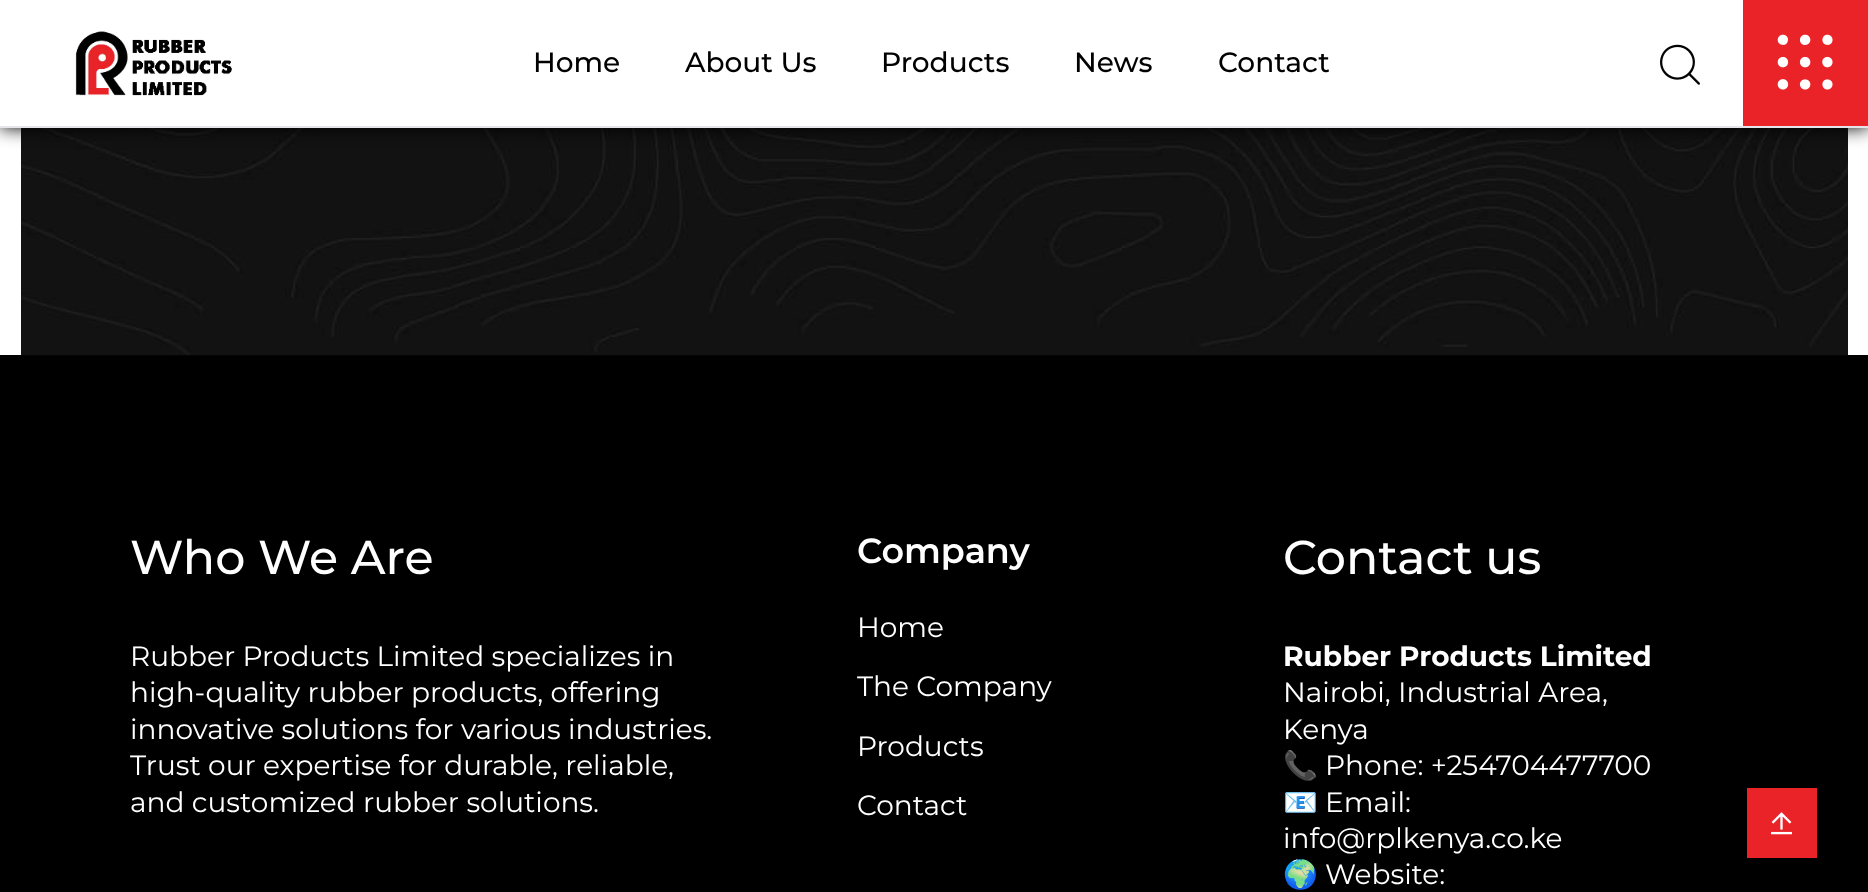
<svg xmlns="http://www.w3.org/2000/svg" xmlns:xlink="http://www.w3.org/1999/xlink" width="1868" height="892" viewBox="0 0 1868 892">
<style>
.cls-1{font:500 28px Montserrat;fill:#000000}
.cls-2{font:500 47.5px Montserrat;fill:#ffffff}
.cls-3{font:28px Montserrat;fill:#ffffff}
.cls-4{font:600 35px Montserrat;fill:#ffffff}
.cls-5{font:bold 28px Montserrat;fill:#ffffff}
.cls-6{font:28px Noto Color Emoji;fill:#ffffff}
</style>
<rect width="100%" height="100%" fill="#ffffff"/>
<rect fill="#000000" x="0" y="355" width="1868" height="537"/>
<image xlink:href="image3.png" x="21" y="128" width="1827" height="228"/>
<rect fill="#000000" filter="blur(9px)" x="0" y="0" width="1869" height="128"/>
<rect fill="#ffffff" x="0" y="0" width="1743" height="126"/>
<rect fill="#e5e6e9" x="0" y="126" width="1868" height="2"/>
<image xlink:href="image0.png" x="75" y="31" width="157" height="65"/>
<image xlink:href="image1.png" x="1660" y="44" width="40" height="41"/>
<rect fill="#e92328" x="1743" y="0" width="125" height="126"/>
<image xlink:href="image2.png" x="1777" y="34" width="56" height="56"/>
<rect fill="#e92328" x="1747" y="788" width="70" height="70"/>
<image xlink:href="image4.png" x="1771" y="812" width="21" height="23"/>
<text class="cls-1" x="533" y="72">Home</text>
<text class="cls-1" x="685" y="72">About Us</text>
<text class="cls-1" x="881" y="72">Products</text>
<text class="cls-1" x="1074" y="72">News</text>
<text class="cls-1" x="1218" y="72">Contact</text>
<text class="cls-2" x="130" y="574">Who We Are</text>
<text class="cls-3"><tspan x="130" y="666">Rubber Products Limited specializes in</tspan><tspan x="130" y="702">high-quality rubber products, offering</tspan><tspan x="130" y="739">innovative solutions for various industries.</tspan><tspan x="130" y="775">Trust our expertise for durable, reliable,</tspan><tspan x="130" y="812">and customized rubber solutions.</tspan></text>
<text class="cls-4" x="857" y="563">Company</text>
<text class="cls-3" x="857" y="637">Home</text>
<text class="cls-3" x="857" y="696">The Company</text>
<text class="cls-3" x="857" y="756">Products</text>
<text class="cls-3" x="857" y="815">Contact</text>
<text class="cls-2" x="1283" y="574">Contact us</text>
<text class="cls-5" x="1283" y="666">Rubber Products Limited</text>
<text class="cls-3"><tspan x="1283" y="702">Nairobi, Industrial Area,</tspan><tspan x="1283" y="739">Kenya</tspan></text>
<text class="cls-6" x="1283" y="775">📞</text>
<text class="cls-3" x="1325" y="775">Phone: +254704477700</text>
<text class="cls-6" x="1283" y="812">📧</text>
<text class="cls-3" x="1325" y="812">Email:</text>
<text class="cls-3" x="1283" y="848">info@rplkenya.co.ke</text>
<text class="cls-6" x="1283" y="884">🌍</text>
<text class="cls-3" x="1325" y="884">Website:</text>
</svg>
